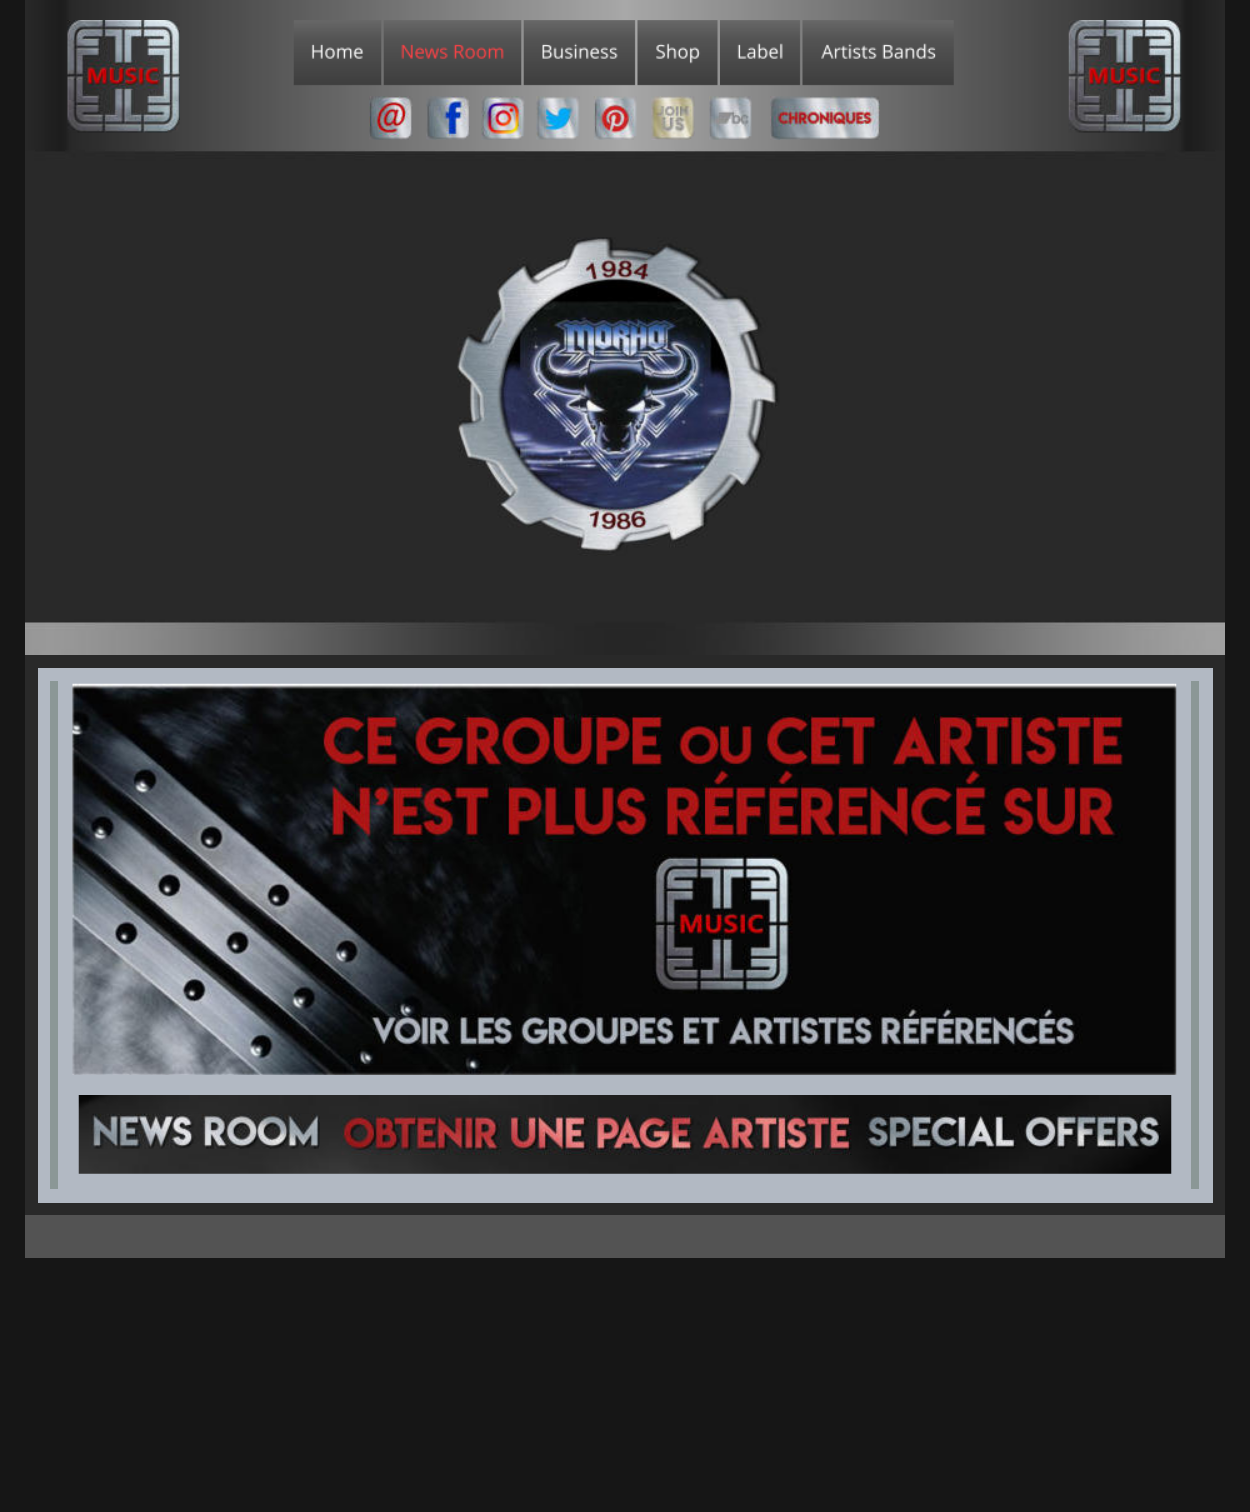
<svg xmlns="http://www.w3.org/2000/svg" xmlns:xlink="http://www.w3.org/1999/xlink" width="1250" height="1512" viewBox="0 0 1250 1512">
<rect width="100%" height="100%" fill="#161616"/>
<image xlink:href="image0.png" x="25" y="0" width="1200" height="655"/>
<image xlink:href="image1.png" x="67" y="20" width="113" height="113"/>
<image xlink:href="image2.png" x="369" y="96" width="44" height="44"/>
<image xlink:href="image3.png" x="426" y="96" width="44" height="44"/>
<image xlink:href="image4.png" x="481" y="96" width="44" height="44"/>
<image xlink:href="image5.png" x="536" y="96" width="44" height="44"/>
<image xlink:href="image6.png" x="593" y="96" width="44" height="44"/>
<image xlink:href="image7.png" x="651" y="96" width="44" height="44"/>
<image xlink:href="image8.png" x="709" y="96" width="43" height="44"/>
<image xlink:href="image9.png" x="770" y="96" width="110" height="44"/>
<image xlink:href="image10.png" x="1068" y="20" width="114" height="113"/>
<image xlink:href="image11.png" x="457" y="237" width="323" height="319"/>
<rect fill="#292929" x="25" y="655" width="1200" height="560"/>
<rect fill="#b2b9c3" x="38" y="668" width="1175" height="535"/>
<rect fill="#8b9796" x="50" y="681" width="8" height="508"/>
<rect fill="#8b9796" x="1191" y="681" width="8" height="508"/>
<image xlink:href="image12.png" x="72" y="683" width="1105" height="392"/>
<image xlink:href="image13.png" x="78" y="1095" width="1094" height="79"/>
<image xlink:href="image14.png" x="91" y="1113" width="229" height="36"/>
<image xlink:href="image15.png" x="341" y="1115" width="511" height="40"/>
<image xlink:href="image16.png" x="866" y="1114" width="295" height="35"/>
<rect fill="#535353" x="25" y="1215" width="1200" height="43"/>
<image xlink:href="image17.png" x="293" y="20" width="89" height="66"/>
<image xlink:href="image18.png" x="383" y="20" width="139" height="66"/>
<image xlink:href="image19.png" x="523" y="20" width="113" height="66"/>
<image xlink:href="image20.png" x="637" y="20" width="81" height="66"/>
<image xlink:href="image21.png" x="720" y="20" width="81" height="66"/>
<image xlink:href="image22.png" x="802" y="20" width="152" height="66"/>
</svg>
